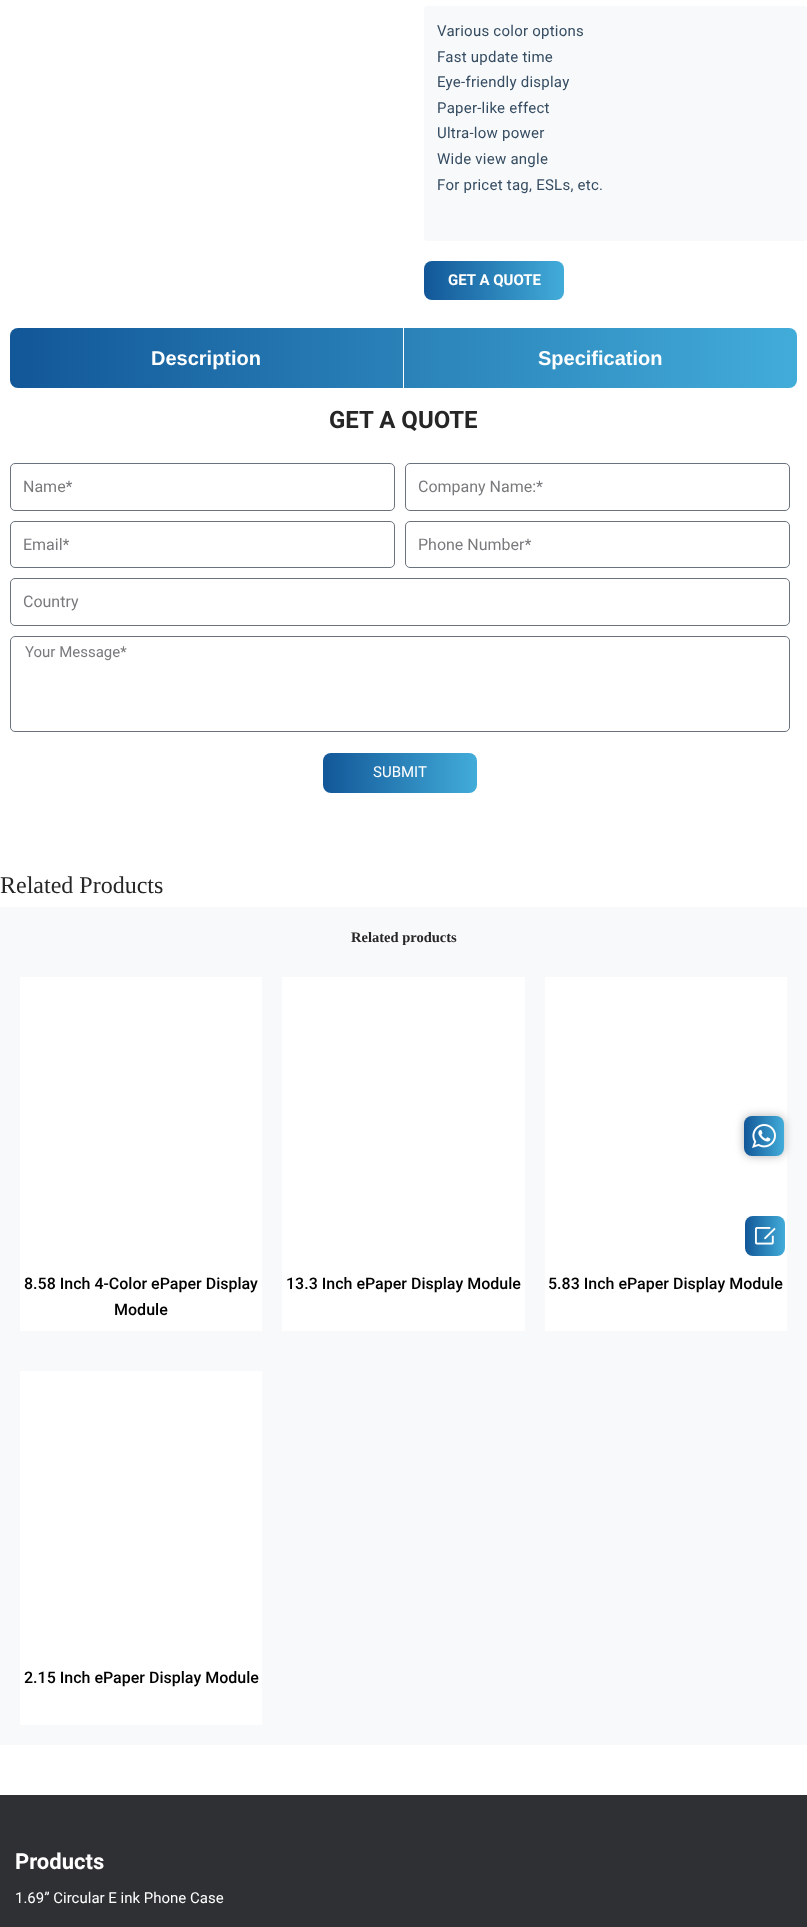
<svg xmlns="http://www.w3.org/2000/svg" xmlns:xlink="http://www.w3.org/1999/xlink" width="807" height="1927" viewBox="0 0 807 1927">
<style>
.cls-1{font:15px Roboto;letter-spacing:0.25px;fill:#354c61}
.cls-2{font:bold 15px Roboto;fill:#ffffff}
.cls-3{font:bold 20px Liberation Sans;fill:#ffffff}
.cls-4{font:bold 24px Roboto;fill:#272626}
.cls-5{font:16px Roboto;fill:#797a7c}
.cls-6{font:15px Roboto;fill:#797a7c}
.cls-7{font:15px Roboto;fill:#ffffff}
.cls-8{font:24px Liberation Serif;fill:#272626}
.cls-9{font:bold 14.5px Liberation Serif;fill:#272626}
.cls-10{font:500 16px Roboto;fill:#000000}
.cls-11{font:bold 22px Roboto;fill:#ffffff}
</style>
<defs>
<linearGradient id="g1" gradientUnits="userSpaceOnUse" x1="424" y1="281" x2="564" y2="281"><stop offset="0" stop-color="#125798"/><stop offset="1" stop-color="#42acd9"/></linearGradient>
<linearGradient id="g2" gradientUnits="userSpaceOnUse" x1="10" y1="358" x2="797" y2="358"><stop offset="0" stop-color="#125798"/><stop offset="1" stop-color="#42acd9"/></linearGradient>
<linearGradient id="g3" gradientUnits="userSpaceOnUse" x1="323" y1="773" x2="477" y2="773"><stop offset="0" stop-color="#125798"/><stop offset="1" stop-color="#42acd9"/></linearGradient>
<linearGradient id="g4" gradientUnits="userSpaceOnUse" x1="744" y1="1136" x2="784" y2="1136"><stop offset="0" stop-color="#125798"/><stop offset="1" stop-color="#42acd9"/></linearGradient>
<linearGradient id="g5" gradientUnits="userSpaceOnUse" x1="745" y1="1236" x2="785" y2="1236"><stop offset="0" stop-color="#125798"/><stop offset="1" stop-color="#42acd9"/></linearGradient>
</defs>
<rect width="100%" height="100%" fill="#ffffff"/>
<rect fill="#f8f9fb" x="424" y="6" width="383" height="235" rx="3"/>
<rect fill="url(#g1)" x="424" y="261" width="140" height="39" rx="8"/>
<rect fill="url(#g2)" x="10" y="328" width="787" height="60" rx="8"/>
<rect fill="#ffffff" x="403" y="328" width="1" height="60"/>
<rect fill="none" stroke="#69727d" x="10.5" y="463.5" width="384" height="47" rx="4.5"/>
<rect fill="none" stroke="#69727d" x="405.5" y="463.5" width="384" height="47" rx="4.5"/>
<rect fill="none" stroke="#69727d" x="10.5" y="521.5" width="384" height="46" rx="4.5"/>
<rect fill="none" stroke="#69727d" x="405.5" y="521.5" width="384" height="46" rx="4.5"/>
<rect fill="none" stroke="#69727d" x="10.5" y="578.5" width="779" height="47" rx="4.5"/>
<rect fill="none" stroke="#69727d" x="10.5" y="636.5" width="779" height="95" rx="4.5"/>
<rect fill="url(#g3)" x="323" y="753" width="154" height="40" rx="8"/>
<rect fill="#f8f9fb" x="0" y="907" width="807" height="838"/>
<rect fill="#ffffff" x="20" y="977" width="242" height="354"/>
<rect fill="#ffffff" x="282" y="977" width="243" height="354"/>
<rect fill="#ffffff" x="545" y="977" width="242" height="354"/>
<rect fill="#ffffff" x="20" y="1371" width="242" height="354"/>
<rect fill="#2e3033" x="0" y="1795" width="807" height="132"/>
<rect fill="#000000" fill-opacity="0.3" filter="blur(5px)" x="744" y="1116" width="40" height="40" rx="8"/>
<rect fill="url(#g4)" x="744" y="1116" width="40" height="40" rx="8"/>
<image xlink:href="image0.png" x="752" y="1124" width="24" height="24"/>
<rect fill="url(#g5)" x="745" y="1216" width="40" height="40" rx="8"/>
<image xlink:href="image1.png" x="755" y="1227" width="21" height="18"/>
<text class="cls-1"><tspan x="437" y="36">Various color options</tspan><tspan x="437" y="62">Fast update time</tspan><tspan x="437" y="87">Eye-friendly display</tspan><tspan x="437" y="113">Paper-like effect</tspan><tspan x="437" y="138">Ultra-low power</tspan><tspan x="437" y="164">Wide view angle</tspan><tspan x="437" y="190">For pricet tag, ESLs, etc.</tspan></text>
<text class="cls-2" x="448" y="285">GET A QUOTE</text>
<text class="cls-3" x="151" y="365">Description</text>
<text class="cls-3" x="538" y="365">Specification</text>
<text class="cls-4" x="329" y="428">GET A QUOTE</text>
<text class="cls-5" x="23" y="492">Name*</text>
<text class="cls-5" x="418" y="492">Company Name:*</text>
<text class="cls-5" x="23" y="550">Email*</text>
<text class="cls-5" x="418" y="550">Phone Number*</text>
<text class="cls-5" x="23" y="607">Country</text>
<text class="cls-6" x="25" y="657">Your Message*</text>
<text class="cls-7" x="373" y="777">SUBMIT</text>
<text class="cls-8" x="0" y="893">Related Products</text>
<text class="cls-9" x="351" y="942">Related products</text>
<text class="cls-10" x="24" y="1289">8.58 Inch 4-Color ePaper Display</text>
<text class="cls-10" x="114" y="1315">Module</text>
<text class="cls-10" x="286" y="1289">13.3 Inch ePaper Display Module</text>
<text class="cls-10" x="548" y="1289">5.83 Inch ePaper Display Module</text>
<text class="cls-10" x="24" y="1683">2.15 Inch ePaper Display Module</text>
<text class="cls-11" x="15" y="1869">Products</text>
<text class="cls-7" x="15" y="1903">1.69” Circular E ink Phone Case</text>
</svg>
